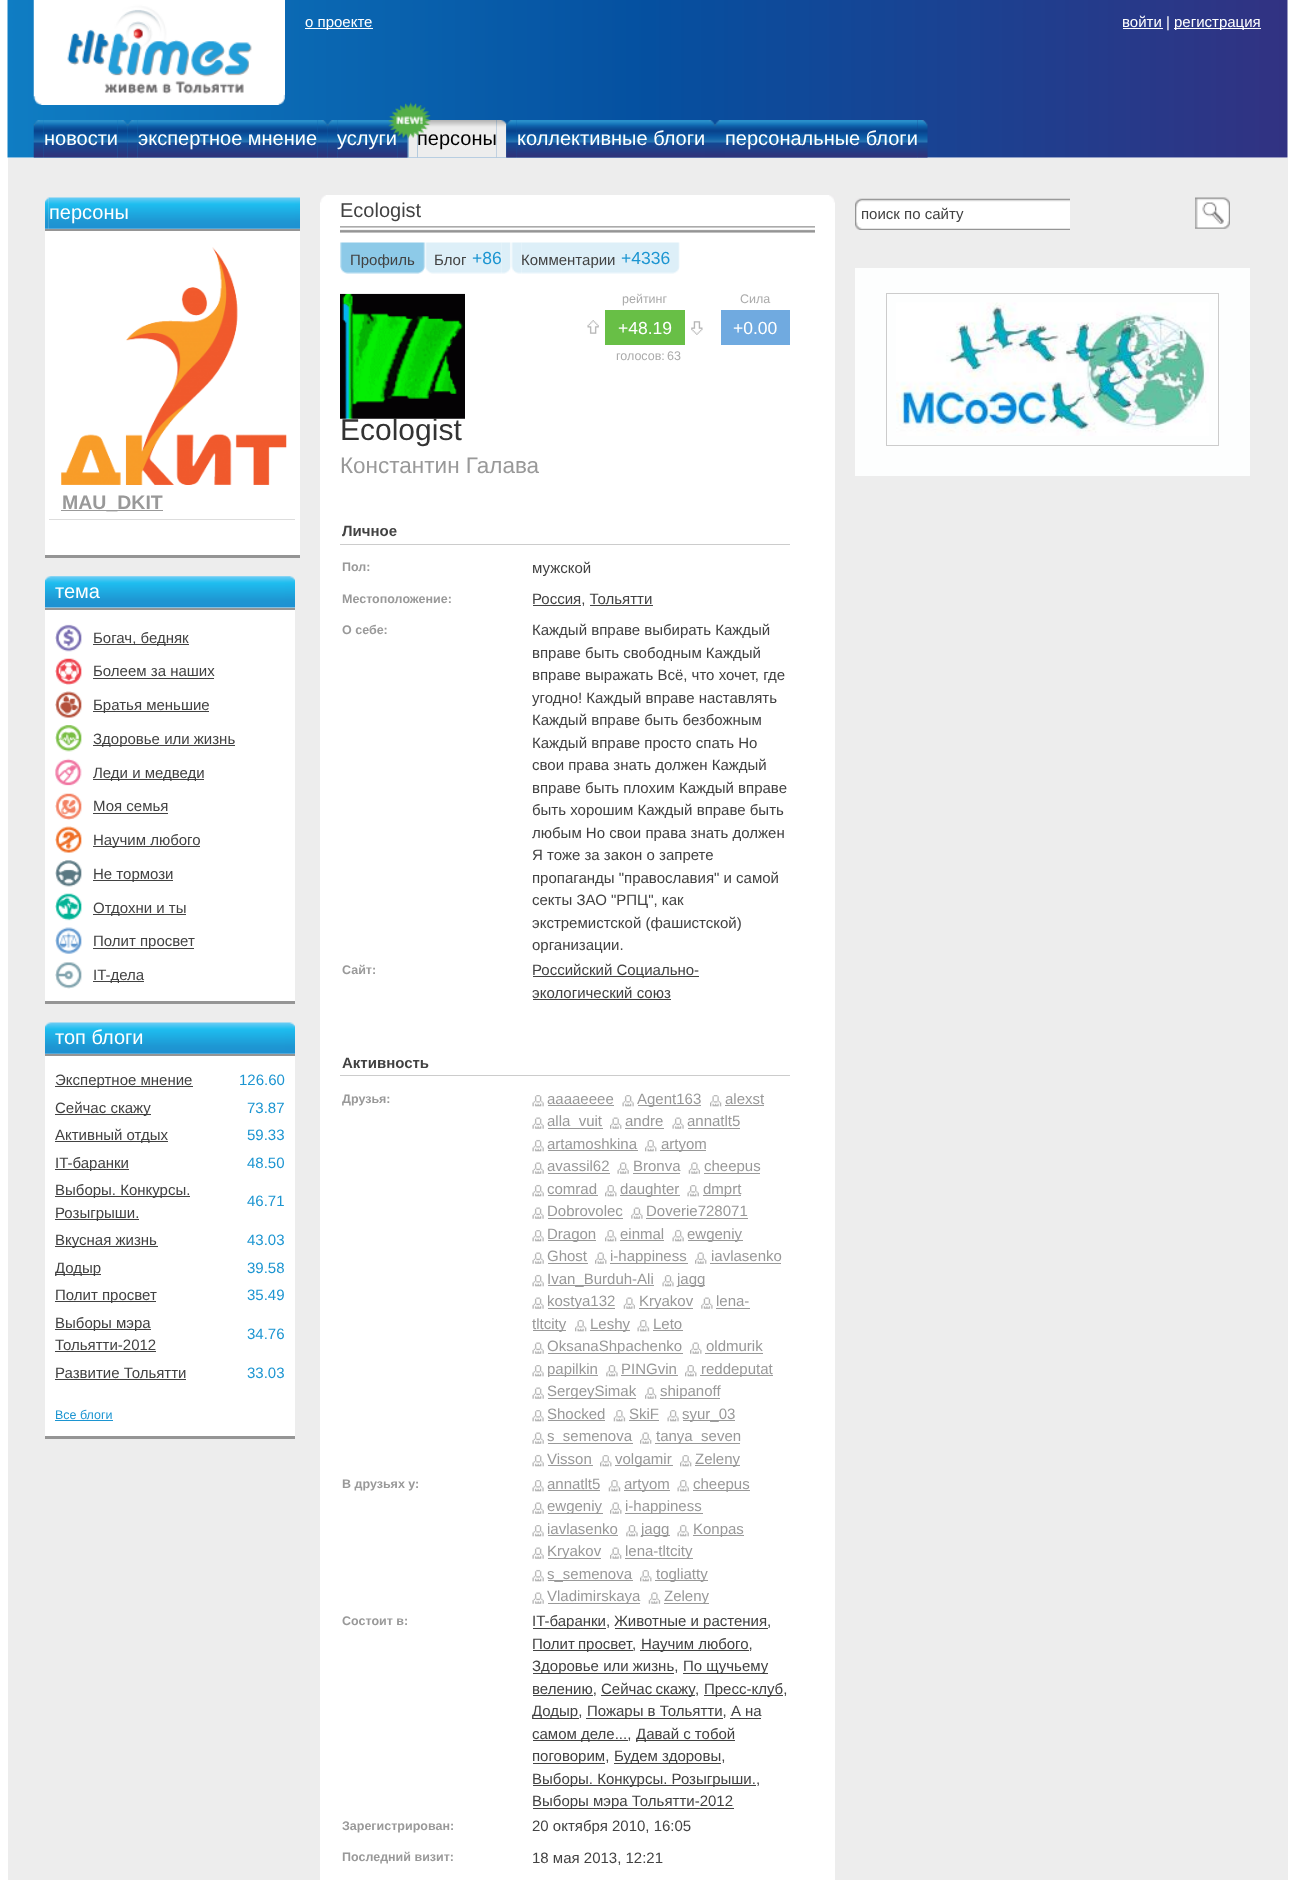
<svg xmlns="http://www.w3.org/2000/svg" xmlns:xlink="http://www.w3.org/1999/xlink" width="1295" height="1880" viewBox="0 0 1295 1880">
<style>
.cls-1{font:15px Liberation Sans;fill:#ffffff}
.cls-2{font:20px Liberation Sans;fill:#ffffff}
.cls-3{font:20px Liberation Sans;fill:#000000}
.cls-4{font:20px Liberation Sans;fill:#424242}
.cls-5{font:15px Liberation Sans;fill:#424242}
.cls-6{font:17.5px Liberation Sans;fill:#1c95d1}
.cls-7{font:12.5px Liberation Sans;fill:#aaaaaa}
.cls-8{font:17.5px Liberation Sans;fill:#ffffff}
.cls-9{font:30px Liberation Sans;fill:#333333}
.cls-10{font:22.5px Liberation Sans;fill:#999999}
.cls-11{font:bold 15px Liberation Sans;fill:#424242}
.cls-12{font:bold 12.5px Liberation Sans;fill:#999999}
.cls-13{font:15px Liberation Sans;fill:#999999}
.cls-14{font:bold 19.5px Liberation Sans;fill:#999999}
.cls-15{font:15px Liberation Sans;fill:#1c95d1}
.cls-16{font:12.5px Liberation Sans;fill:#1c95d1}
</style>
<rect width="100%" height="100%" fill="#ffffff"/>
<image xlink:href="image0.png" x="7" y="0" width="1281" height="158"/>
<image xlink:href="image1.png" x="33" y="0" width="252" height="105"/>
<rect fill="#ffffff" x="305" y="28" width="68" height="1"/>
<rect fill="#ffffff" x="1123" y="28" width="40" height="1"/>
<rect fill="#ffffff" x="1174" y="28" width="87" height="1"/>
<image xlink:href="image2.png" x="33" y="120" width="11" height="38"/>
<image xlink:href="image3.png" x="43" y="120" width="75" height="38"/>
<image xlink:href="image4.png" x="117" y="120" width="11" height="38"/>
<image xlink:href="image5.png" x="127" y="120" width="11" height="38"/>
<image xlink:href="image6.png" x="137" y="120" width="181" height="38"/>
<image xlink:href="image7.png" x="317" y="120" width="11" height="38"/>
<image xlink:href="image8.png" x="327" y="120" width="11" height="38"/>
<image xlink:href="image9.png" x="337" y="120" width="61" height="38"/>
<image xlink:href="image11.png" x="397" y="131" width="11" height="27"/>
<image xlink:href="image12.png" x="407" y="130" width="11" height="28"/>
<image xlink:href="image13.png" x="417" y="120" width="80" height="38"/>
<image xlink:href="image14.png" x="496" y="120" width="11" height="38"/>
<image xlink:href="image15.png" x="506" y="120" width="11" height="38"/>
<image xlink:href="image16.png" x="516" y="120" width="189" height="38"/>
<image xlink:href="image17.png" x="705" y="120" width="10" height="38"/>
<image xlink:href="image18.png" x="715" y="120" width="10" height="38"/>
<image xlink:href="image19.png" x="725" y="120" width="193" height="38"/>
<image xlink:href="image20.png" x="917" y="120" width="11" height="38"/>
<rect fill="#ededed" x="8" y="158" width="1280" height="37"/>
<rect fill="#ededed" x="8" y="195" width="312" height="1685"/>
<rect fill="#ededed" x="340" y="226" width="475" height="7"/>
<image xlink:href="image21.png" x="320" y="195" width="6" height="8"/>
<image xlink:href="image22.png" x="829" y="195" width="6" height="8"/>
<image xlink:href="image23.png" x="340" y="226" width="475" height="7"/>
<image xlink:href="image24.png" x="340" y="242" width="10" height="32"/>
<image xlink:href="image25.png" x="350" y="242" width="65" height="32"/>
<image xlink:href="image26.png" x="415" y="242" width="10" height="32"/>
<image xlink:href="image27.png" x="425" y="242" width="10" height="32"/>
<image xlink:href="image28.png" x="435" y="242" width="67" height="32"/>
<image xlink:href="image29.png" x="501" y="242" width="10" height="32"/>
<image xlink:href="image30.png" x="511" y="242" width="11" height="32"/>
<image xlink:href="image31.png" x="521" y="242" width="149" height="32"/>
<image xlink:href="image32.png" x="670" y="242" width="10" height="32"/>
<image xlink:href="image33.png" x="587" y="320" width="12" height="14"/>
<rect fill="#68bf46" x="605" y="310" width="80" height="35"/>
<image xlink:href="image34.png" x="691" y="321" width="12" height="14"/>
<rect fill="#70aae0" x="721" y="310" width="69" height="35"/>
<image xlink:href="image35.png" x="340" y="293" width="125" height="126"/>
<rect fill="#cccccc" x="340" y="544" width="450" height="1"/>
<rect fill="#424242" x="533" y="605" width="48" height="1"/>
<rect fill="#424242" x="590" y="605" width="63" height="1"/>
<rect fill="#424242" x="533" y="976" width="166" height="1"/>
<rect fill="#424242" x="533" y="999" width="138" height="1"/>
<rect fill="#cccccc" x="340" y="1075" width="450" height="1"/>
<image xlink:href="image36.png" x="532" y="1095" width="12" height="12"/>
<rect fill="#999999" x="548" y="1105" width="66" height="1"/>
<image xlink:href="image36.png" x="622" y="1095" width="12" height="12"/>
<rect fill="#999999" x="638" y="1105" width="63" height="1"/>
<image xlink:href="image37.png" x="710" y="1095" width="12" height="12"/>
<rect fill="#999999" x="725" y="1105" width="39" height="1"/>
<image xlink:href="image38.png" x="532" y="1117" width="12" height="12"/>
<rect fill="#999999" x="548" y="1128" width="55" height="1"/>
<image xlink:href="image39.png" x="610" y="1117" width="12" height="12"/>
<rect fill="#999999" x="625" y="1128" width="39" height="1"/>
<image xlink:href="image40.png" x="672" y="1117" width="12" height="12"/>
<rect fill="#999999" x="688" y="1128" width="52" height="1"/>
<image xlink:href="image41.png" x="532" y="1139" width="12" height="13"/>
<rect fill="#999999" x="548" y="1150" width="90" height="1"/>
<image xlink:href="image42.png" x="645" y="1140" width="12" height="12"/>
<rect fill="#999999" x="660" y="1150" width="46" height="1"/>
<image xlink:href="image38.png" x="532" y="1162" width="12" height="12"/>
<rect fill="#999999" x="548" y="1173" width="62" height="1"/>
<image xlink:href="image38.png" x="617" y="1162" width="12" height="12"/>
<rect fill="#999999" x="633" y="1173" width="47" height="1"/>
<image xlink:href="image43.png" x="688" y="1162" width="12" height="12"/>
<rect fill="#999999" x="704" y="1173" width="56" height="1"/>
<image xlink:href="image44.png" x="532" y="1184" width="12" height="13"/>
<rect fill="#999999" x="548" y="1195" width="50" height="1"/>
<image xlink:href="image45.png" x="605" y="1185" width="12" height="12"/>
<rect fill="#999999" x="620" y="1195" width="60" height="1"/>
<image xlink:href="image46.png" x="687" y="1185" width="12" height="12"/>
<rect fill="#999999" x="703" y="1195" width="38" height="1"/>
<image xlink:href="image40.png" x="532" y="1207" width="12" height="12"/>
<rect fill="#999999" x="548" y="1218" width="75" height="1"/>
<image xlink:href="image47.png" x="631" y="1207" width="12" height="12"/>
<rect fill="#999999" x="646" y="1218" width="102" height="1"/>
<image xlink:href="image48.png" x="532" y="1230" width="12" height="12"/>
<rect fill="#999999" x="548" y="1240" width="48" height="1"/>
<image xlink:href="image37.png" x="605" y="1230" width="12" height="12"/>
<rect fill="#999999" x="620" y="1240" width="44" height="1"/>
<image xlink:href="image49.png" x="672" y="1229" width="12" height="13"/>
<rect fill="#999999" x="688" y="1240" width="55" height="1"/>
<image xlink:href="image50.png" x="532" y="1252" width="12" height="12"/>
<rect fill="#999999" x="548" y="1263" width="40" height="1"/>
<image xlink:href="image51.png" x="595" y="1252" width="12" height="12"/>
<rect fill="#999999" x="610" y="1263" width="78" height="1"/>
<image xlink:href="image52.png" x="695" y="1252" width="12" height="12"/>
<rect fill="#999999" x="710" y="1263" width="71" height="1"/>
<image xlink:href="image41.png" x="532" y="1274" width="12" height="13"/>
<rect fill="#999999" x="548" y="1285" width="106" height="1"/>
<image xlink:href="image53.png" x="662" y="1275" width="12" height="12"/>
<rect fill="#999999" x="678" y="1285" width="27" height="1"/>
<image xlink:href="image40.png" x="532" y="1297" width="12" height="12"/>
<rect fill="#999999" x="548" y="1308" width="67" height="1"/>
<image xlink:href="image43.png" x="623" y="1297" width="12" height="12"/>
<rect fill="#999999" x="639" y="1308" width="54" height="1"/>
<image xlink:href="image47.png" x="701" y="1297" width="12" height="12"/>
<rect fill="#999999" x="716" y="1308" width="34" height="1"/>
<rect fill="#999999" x="533" y="1330" width="33" height="1"/>
<image xlink:href="image54.png" x="575" y="1320" width="12" height="12"/>
<rect fill="#999999" x="590" y="1330" width="40" height="1"/>
<image xlink:href="image55.png" x="637" y="1320" width="13" height="12"/>
<rect fill="#999999" x="653" y="1330" width="30" height="1"/>
<image xlink:href="image50.png" x="532" y="1342" width="12" height="12"/>
<rect fill="#999999" x="548" y="1353" width="135" height="1"/>
<image xlink:href="image56.png" x="690" y="1342" width="12" height="12"/>
<rect fill="#999999" x="705" y="1353" width="58" height="1"/>
<image xlink:href="image57.png" x="532" y="1365" width="12" height="12"/>
<rect fill="#999999" x="548" y="1375" width="50" height="1"/>
<image xlink:href="image58.png" x="606" y="1365" width="12" height="12"/>
<rect fill="#999999" x="621" y="1375" width="57" height="1"/>
<image xlink:href="image59.png" x="685" y="1365" width="12" height="12"/>
<rect fill="#999999" x="700" y="1375" width="73" height="1"/>
<image xlink:href="image50.png" x="532" y="1387" width="12" height="12"/>
<rect fill="#999999" x="548" y="1398" width="88" height="1"/>
<image xlink:href="image60.png" x="645" y="1387" width="12" height="12"/>
<rect fill="#999999" x="660" y="1398" width="60" height="1"/>
<image xlink:href="image57.png" x="532" y="1410" width="12" height="12"/>
<rect fill="#999999" x="548" y="1420" width="57" height="1"/>
<image xlink:href="image61.png" x="613" y="1410" width="13" height="12"/>
<rect fill="#999999" x="629" y="1420" width="30" height="1"/>
<image xlink:href="image57.png" x="667" y="1410" width="12" height="12"/>
<rect fill="#999999" x="683" y="1420" width="52" height="1"/>
<image xlink:href="image50.png" x="532" y="1432" width="12" height="12"/>
<rect fill="#999999" x="548" y="1443" width="85" height="1"/>
<image xlink:href="image62.png" x="640" y="1432" width="12" height="12"/>
<rect fill="#999999" x="655" y="1443" width="85" height="1"/>
<image xlink:href="image63.png" x="532" y="1454" width="12" height="13"/>
<rect fill="#999999" x="548" y="1465" width="45" height="1"/>
<image xlink:href="image64.png" x="600" y="1455" width="12" height="12"/>
<rect fill="#999999" x="615" y="1465" width="58" height="1"/>
<image xlink:href="image54.png" x="680" y="1455" width="12" height="12"/>
<rect fill="#999999" x="695" y="1465" width="45" height="1"/>
<image xlink:href="image57.png" x="532" y="1480" width="12" height="12"/>
<rect fill="#999999" x="548" y="1490" width="52" height="1"/>
<image xlink:href="image65.png" x="608" y="1480" width="13" height="12"/>
<rect fill="#999999" x="624" y="1490" width="46" height="1"/>
<image xlink:href="image66.png" x="677" y="1480" width="12" height="12"/>
<rect fill="#999999" x="693" y="1490" width="57" height="1"/>
<image xlink:href="image38.png" x="532" y="1502" width="12" height="12"/>
<rect fill="#999999" x="548" y="1513" width="55" height="1"/>
<image xlink:href="image51.png" x="610" y="1502" width="12" height="12"/>
<rect fill="#999999" x="625" y="1513" width="78" height="1"/>
<image xlink:href="image57.png" x="532" y="1525" width="12" height="12"/>
<rect fill="#999999" x="548" y="1535" width="70" height="1"/>
<image xlink:href="image67.png" x="626" y="1525" width="12" height="12"/>
<rect fill="#999999" x="641" y="1535" width="29" height="1"/>
<image xlink:href="image68.png" x="677" y="1524" width="12" height="13"/>
<rect fill="#999999" x="693" y="1535" width="51" height="1"/>
<image xlink:href="image69.png" x="532" y="1547" width="12" height="12"/>
<rect fill="#999999" x="548" y="1558" width="53" height="1"/>
<image xlink:href="image62.png" x="610" y="1547" width="12" height="12"/>
<rect fill="#999999" x="625" y="1558" width="68" height="1"/>
<image xlink:href="image44.png" x="532" y="1569" width="12" height="13"/>
<rect fill="#999999" x="548" y="1580" width="85" height="1"/>
<image xlink:href="image45.png" x="640" y="1570" width="12" height="12"/>
<rect fill="#999999" x="655" y="1580" width="53" height="1"/>
<image xlink:href="image50.png" x="532" y="1592" width="12" height="12"/>
<rect fill="#999999" x="548" y="1603" width="92" height="1"/>
<image xlink:href="image70.png" x="648" y="1592" width="13" height="12"/>
<rect fill="#999999" x="664" y="1603" width="45" height="1"/>
<rect fill="#424242" x="533" y="1628" width="73" height="1"/>
<rect fill="#424242" x="615" y="1628" width="153" height="1"/>
<rect fill="#424242" x="533" y="1650" width="100" height="1"/>
<rect fill="#424242" x="640" y="1650" width="109" height="1"/>
<rect fill="#424242" x="533" y="1673" width="141" height="1"/>
<rect fill="#424242" x="683" y="1673" width="85" height="1"/>
<rect fill="#424242" x="533" y="1695" width="60" height="1"/>
<rect fill="#424242" x="601" y="1695" width="94" height="1"/>
<rect fill="#424242" x="704" y="1695" width="79" height="1"/>
<rect fill="#424242" x="533" y="1718" width="46" height="1"/>
<rect fill="#424242" x="586" y="1718" width="137" height="1"/>
<rect fill="#424242" x="730" y="1718" width="31" height="1"/>
<rect fill="#424242" x="533" y="1740" width="95" height="1"/>
<rect fill="#424242" x="636" y="1740" width="99" height="1"/>
<rect fill="#424242" x="533" y="1763" width="72" height="1"/>
<rect fill="#424242" x="614" y="1763" width="107" height="1"/>
<rect fill="#424242" x="533" y="1785" width="223" height="1"/>
<rect fill="#424242" x="533" y="1808" width="201" height="1"/>
<rect fill="#ededed" x="835" y="195" width="453" height="1685"/>
<image xlink:href="image71.png" x="45" y="197" width="4" height="32"/>
<image xlink:href="image72.png" x="48" y="197" width="247" height="32"/>
<image xlink:href="image73.png" x="295" y="197" width="5" height="32"/>
<rect fill="#959595" x="45" y="229" width="255" height="2"/>
<rect fill="#ffffff" x="45" y="231" width="255" height="10"/>
<rect fill="#ffffff" x="45" y="241" width="250" height="304"/>
<rect fill="#dddddd" x="49" y="519" width="247" height="1"/>
<rect fill="#ffffff" x="295" y="241" width="5" height="304"/>
<image xlink:href="image74.png" x="61" y="247" width="226" height="238"/>
<rect fill="#999999" x="61" y="510" width="102" height="1"/>
<rect fill="#ffffff" x="45" y="545" width="255" height="10"/>
<rect fill="#959595" x="45" y="555" width="255" height="3"/>
<image xlink:href="image75.png" x="45" y="576" width="10" height="32"/>
<image xlink:href="image76.png" x="55" y="576" width="230" height="32"/>
<image xlink:href="image77.png" x="285" y="576" width="10" height="32"/>
<rect fill="#959595" x="45" y="608" width="250" height="2"/>
<rect fill="#ffffff" x="45" y="610" width="250" height="10"/>
<rect fill="#ffffff" x="45" y="620" width="250" height="371"/>
<image xlink:href="image78.png" x="55" y="624" width="27" height="28"/>
<rect fill="#424242" x="93" y="644" width="96" height="1"/>
<image xlink:href="image79.png" x="55" y="658" width="27" height="27"/>
<rect fill="#424242" x="93" y="678" width="121" height="1"/>
<image xlink:href="image80.png" x="55" y="691" width="27" height="27"/>
<rect fill="#424242" x="93" y="711" width="116" height="1"/>
<image xlink:href="image81.png" x="55" y="725" width="27" height="27"/>
<rect fill="#424242" x="93" y="745" width="142" height="1"/>
<image xlink:href="image82.png" x="55" y="758" width="27" height="28"/>
<rect fill="#424242" x="93" y="779" width="111" height="1"/>
<image xlink:href="image83.png" x="55" y="793" width="27" height="27"/>
<rect fill="#424242" x="93" y="813" width="75" height="1"/>
<image xlink:href="image84.png" x="55" y="826" width="27" height="27"/>
<rect fill="#424242" x="93" y="846" width="107" height="1"/>
<image xlink:href="image85.png" x="55" y="860" width="27" height="27"/>
<rect fill="#424242" x="93" y="880" width="80" height="1"/>
<image xlink:href="image86.png" x="55" y="893" width="27" height="28"/>
<rect fill="#424242" x="93" y="914" width="93" height="1"/>
<image xlink:href="image87.png" x="55" y="927" width="27" height="27"/>
<rect fill="#424242" x="93" y="948" width="101" height="1"/>
<image xlink:href="image88.png" x="55" y="962" width="27" height="27"/>
<rect fill="#424242" x="93" y="981" width="51" height="1"/>
<rect fill="#ffffff" x="45" y="991" width="250" height="10"/>
<rect fill="#959595" x="45" y="1001" width="250" height="3"/>
<image xlink:href="image89.png" x="45" y="1022" width="10" height="32"/>
<image xlink:href="image90.png" x="55" y="1022" width="230" height="32"/>
<image xlink:href="image91.png" x="285" y="1022" width="10" height="32"/>
<rect fill="#959595" x="45" y="1054" width="250" height="2"/>
<rect fill="#ffffff" x="45" y="1056" width="250" height="10"/>
<rect fill="#ffffff" x="45" y="1066" width="250" height="360"/>
<rect fill="#424242" x="55" y="1086" width="138" height="1"/>
<rect fill="#424242" x="55" y="1114" width="96" height="1"/>
<rect fill="#424242" x="55" y="1141" width="113" height="1"/>
<rect fill="#424242" x="55" y="1169" width="74" height="1"/>
<rect fill="#424242" x="55" y="1196" width="135" height="1"/>
<rect fill="#424242" x="55" y="1219" width="84" height="1"/>
<rect fill="#424242" x="55" y="1246" width="103" height="1"/>
<rect fill="#424242" x="55" y="1274" width="46" height="1"/>
<rect fill="#424242" x="55" y="1301" width="101" height="1"/>
<rect fill="#424242" x="55" y="1329" width="96" height="1"/>
<rect fill="#424242" x="55" y="1351" width="101" height="1"/>
<rect fill="#424242" x="55" y="1379" width="131" height="1"/>
<rect fill="#1c95d1" x="55" y="1420" width="58" height="1"/>
<rect fill="#ffffff" x="45" y="1426" width="250" height="10"/>
<rect fill="#959595" x="45" y="1436" width="250" height="3"/>
<image xlink:href="image92.png" x="855" y="198" width="215" height="32"/>
<image xlink:href="image93.png" x="1195" y="197" width="35" height="32"/>
<rect fill="#fdfefe" x="855" y="268" width="395" height="208"/>
<rect fill="none" stroke="#cccccc" x="886.5" y="293.5" width="332" height="152"/>
<image xlink:href="image94.png" x="896" y="302" width="313" height="134"/>
<text class="cls-1" x="305" y="27">о проекте</text>
<text class="cls-1" x="1122" y="27">войти |</text>
<text class="cls-1" x="1174" y="27">регистрация</text>
<text class="cls-2" x="44" y="145">новости</text>
<text class="cls-2" x="138" y="145">экспертное мнение</text>
<text class="cls-2" x="337" y="145">услуги</text>
<image xlink:href="image10.png" x="388" y="102" width="43" height="37"/>
<text class="cls-3" x="417" y="145">персоны</text>
<text class="cls-2" x="517" y="145">коллективные блоги</text>
<text class="cls-2" x="725" y="145">персональные блоги</text>
<text class="cls-4" x="340" y="217">Ecologist</text>
<text class="cls-5" x="350" y="265">Профиль</text>
<text class="cls-5" x="434" y="265">Блог</text>
<text class="cls-6" x="472" y="264">+86</text>
<text class="cls-5" x="521" y="265">Комментарии</text>
<text class="cls-6" x="621" y="264">+4336</text>
<text class="cls-7" x="622" y="303">рейтинг</text>
<text class="cls-8" x="618" y="334">+48.19</text>
<text class="cls-7" x="616" y="360">голосов:</text>
<text class="cls-7" x="667" y="360">63</text>
<text class="cls-7" x="740" y="303">Сила</text>
<text class="cls-8" x="733" y="334">+0.00</text>
<text class="cls-9" x="340" y="440">Ecologist</text>
<text class="cls-10" x="340" y="473">Константин Галава</text>
<text class="cls-11" x="342" y="536">Личное</text>
<text class="cls-12" x="342" y="571">Пол:</text>
<text class="cls-5" x="532" y="573">мужской</text>
<text class="cls-12" x="342" y="603">Местоположение:</text>
<text class="cls-5" x="532" y="604">Россия, Тольятти</text>
<text class="cls-12" x="342" y="634">О себе:</text>
<text class="cls-5"><tspan x="532" y="635">Каждый вправе выбирать Каждый</tspan><tspan x="532" y="658">вправе быть свободным Каждый</tspan><tspan x="532" y="680">вправе выражать Всё, что хочет, где</tspan><tspan x="532" y="703">угодно! Каждый вправе наставлять</tspan><tspan x="532" y="725">Каждый вправе быть безбожным</tspan><tspan x="532" y="748">Каждый вправе просто спать Но</tspan><tspan x="532" y="770">свои права знать должен Каждый</tspan><tspan x="532" y="793">вправе быть плохим Каждый вправе</tspan><tspan x="532" y="815">быть хорошим Каждый вправе быть</tspan><tspan x="532" y="838">любым Но свои права знать должен</tspan><tspan x="532" y="860">Я тоже за закон о запрете</tspan><tspan x="532" y="883">пропаганды "православия" и самой</tspan><tspan x="532" y="905">секты ЗАО "РПЦ", как</tspan><tspan x="532" y="928">экстремистской (фашистской)</tspan><tspan x="532" y="950">организации.</tspan></text>
<text class="cls-12" x="342" y="974">Сайт:</text>
<text class="cls-5"><tspan x="532" y="975">Российский Социально-</tspan><tspan x="532" y="998">экологический союз</tspan></text>
<text class="cls-11" x="342" y="1068">Активность</text>
<text class="cls-12" x="342" y="1103">Друзья:</text>
<text class="cls-13" x="547" y="1104">aaaaeeee</text>
<text class="cls-13" x="637" y="1104">Agent163</text>
<text class="cls-13" x="725" y="1104">alexst</text>
<text class="cls-13" x="547" y="1126">alla_vuit</text>
<text class="cls-13" x="625" y="1126">andre</text>
<text class="cls-13" x="687" y="1126">annatlt5</text>
<text class="cls-13" x="547" y="1149">artamoshkina</text>
<text class="cls-13" x="661" y="1149">artyom</text>
<text class="cls-13" x="547" y="1171">avassil62</text>
<text class="cls-13" x="633" y="1171">Bronva</text>
<text class="cls-13" x="704" y="1171">cheepus</text>
<text class="cls-13" x="547" y="1194">comrad</text>
<text class="cls-13" x="620" y="1194">daughter</text>
<text class="cls-13" x="703" y="1194">dmprt</text>
<text class="cls-13" x="547" y="1216">Dobrovolec</text>
<text class="cls-13" x="646" y="1216">Doverie728071</text>
<text class="cls-13" x="547" y="1239">Dragon</text>
<text class="cls-13" x="620" y="1239">einmal</text>
<text class="cls-13" x="687" y="1239">ewgeniy</text>
<text class="cls-13" x="547" y="1261">Ghost</text>
<text class="cls-13" x="610" y="1261">i-happiness</text>
<text class="cls-13" x="711" y="1261">iavlasenko</text>
<text class="cls-13" x="547" y="1284">Ivan_Burduh-Ali</text>
<text class="cls-13" x="677" y="1284">jagg</text>
<text class="cls-13" x="547" y="1306">kostya132</text>
<text class="cls-13" x="639" y="1306">Kryakov</text>
<text class="cls-13" x="716" y="1306">lena-</text>
<text class="cls-13" x="532" y="1329">tltcity</text>
<text class="cls-13" x="590" y="1329">Leshy</text>
<text class="cls-13" x="653" y="1329">Leto</text>
<text class="cls-13" x="547" y="1351">OksanaShpachenko</text>
<text class="cls-13" x="706" y="1351">oldmurik</text>
<text class="cls-13" x="547" y="1374">papilkin</text>
<text class="cls-13" x="621" y="1374">PINGvin</text>
<text class="cls-13" x="701" y="1374">reddeputat</text>
<text class="cls-13" x="547" y="1396">SergeySimak</text>
<text class="cls-13" x="660" y="1396">shipanoff</text>
<text class="cls-13" x="547" y="1419">Shocked</text>
<text class="cls-13" x="629" y="1419">SkiF</text>
<text class="cls-13" x="682" y="1419">syur_03</text>
<text class="cls-13" x="547" y="1441">s_semenova</text>
<text class="cls-13" x="656" y="1441">tanya_seven</text>
<text class="cls-13" x="547" y="1464">Visson</text>
<text class="cls-13" x="615" y="1464">volgamir</text>
<text class="cls-13" x="695" y="1464">Zeleny</text>
<text class="cls-12" x="342" y="1488">В друзьях у:</text>
<text class="cls-13" x="547" y="1489">annatlt5</text>
<text class="cls-13" x="624" y="1489">artyom</text>
<text class="cls-13" x="693" y="1489">cheepus</text>
<text class="cls-13" x="547" y="1511">ewgeniy</text>
<text class="cls-13" x="625" y="1511">i-happiness</text>
<text class="cls-13" x="547" y="1534">iavlasenko</text>
<text class="cls-13" x="641" y="1534">jagg</text>
<text class="cls-13" x="693" y="1534">Konpas</text>
<text class="cls-13" x="547" y="1556">Kryakov</text>
<text class="cls-13" x="625" y="1556">lena-tltcity</text>
<text class="cls-13" x="547" y="1579">s_semenova</text>
<text class="cls-13" x="656" y="1579">togliatty</text>
<text class="cls-13" x="547" y="1601">Vladimirskaya</text>
<text class="cls-13" x="664" y="1601">Zeleny</text>
<text class="cls-12" x="342" y="1625">Состоит в:</text>
<text class="cls-5" x="532" y="1626">IT-баранки,</text>
<text class="cls-5" x="614" y="1626">Животные и растения,</text>
<text class="cls-5" x="532" y="1649" word-spacing="-1">Полит просвет</text>
<text class="cls-5" x="632" y="1649">,</text>
<text class="cls-5" x="641" y="1649">Научим любого,</text>
<text class="cls-5" x="532" y="1671">Здоровье или жизнь,</text>
<text class="cls-5" x="683" y="1671">По щучьему</text>
<text class="cls-5" x="532" y="1694">велению,</text>
<text class="cls-5" x="601" y="1694" word-spacing="-1">Сейчас скажу</text>
<text class="cls-5" x="695" y="1694">,</text>
<text class="cls-5" x="704" y="1694">Пресс-клуб,</text>
<text class="cls-5" x="532" y="1716">Додыр,</text>
<text class="cls-5" x="587" y="1716">Пожары в Тольятти, А на</text>
<text class="cls-5" x="532" y="1739">самом деле...,</text>
<text class="cls-5" x="636" y="1739">Давай с тобой</text>
<text class="cls-5" x="532" y="1761">поговорим,</text>
<text class="cls-5" x="614" y="1761">Будем здоровы,</text>
<text class="cls-5"><tspan x="532" y="1784">Выборы. Конкурсы. Розыгрыши.,</tspan><tspan x="532" y="1806">Выборы мэра Тольятти-2012</tspan></text>
<text class="cls-12" x="342" y="1830">Зарегистрирован:</text>
<text class="cls-5" x="532" y="1831">20 октября 2010, 16:05</text>
<text class="cls-12" x="342" y="1861">Последний визит:</text>
<text class="cls-5" x="532" y="1863">18 мая 2013, 12:21</text>
<text class="cls-2" x="49" y="219">персоны</text>
<text class="cls-14" x="62" y="509">MAU_DKIT</text>
<text class="cls-2" x="55" y="598">тема</text>
<text class="cls-5" x="93" y="643">Богач, бедняк</text>
<text class="cls-5" x="93" y="676">Болеем за наших</text>
<text class="cls-5" x="93" y="710">Братья меньшие</text>
<text class="cls-5" x="93" y="744">Здоровье или жизнь</text>
<text class="cls-5" x="93" y="778">Леди и медведи</text>
<text class="cls-5" x="93" y="811">Моя семья</text>
<text class="cls-5" x="93" y="845">Научим любого</text>
<text class="cls-5" x="93" y="879">Не тормози</text>
<text class="cls-5" x="93" y="913">Отдохни и ты</text>
<text class="cls-5" x="93" y="946">Полит просвет</text>
<text class="cls-5" x="93" y="980">IT-дела</text>
<text class="cls-2" x="55" y="1044">топ блоги</text>
<text class="cls-5" x="55" y="1085">Экспертное мнение</text>
<text class="cls-15" x="239" y="1085">126.60</text>
<text class="cls-5" x="55" y="1113">Сейчас скажу</text>
<text class="cls-15" x="247" y="1113">73.87</text>
<text class="cls-5" x="55" y="1140">Активный отдых</text>
<text class="cls-15" x="247" y="1140">59.33</text>
<text class="cls-5" x="55" y="1168">IT-баранки</text>
<text class="cls-15" x="247" y="1168">48.50</text>
<text class="cls-5"><tspan x="55" y="1195">Выборы. Конкурсы.</tspan><tspan x="55" y="1218">Розыгрыши.</tspan></text>
<text class="cls-15" x="247" y="1206">46.71</text>
<text class="cls-5" x="55" y="1245">Вкусная жизнь</text>
<text class="cls-15" x="247" y="1245">43.03</text>
<text class="cls-5" x="55" y="1273">Додыр</text>
<text class="cls-15" x="247" y="1273">39.58</text>
<text class="cls-5" x="55" y="1300">Полит просвет</text>
<text class="cls-15" x="247" y="1300">35.49</text>
<text class="cls-5"><tspan x="55" y="1328">Выборы мэра</tspan><tspan x="55" y="1350">Тольятти-2012</tspan></text>
<text class="cls-15" x="247" y="1339">34.76</text>
<text class="cls-5" x="55" y="1378">Развитие Тольятти</text>
<text class="cls-15" x="247" y="1378">33.03</text>
<text class="cls-16" x="55" y="1419">Все блоги</text>
<text class="cls-5" x="861" y="219">поиск по сайту</text>
</svg>
